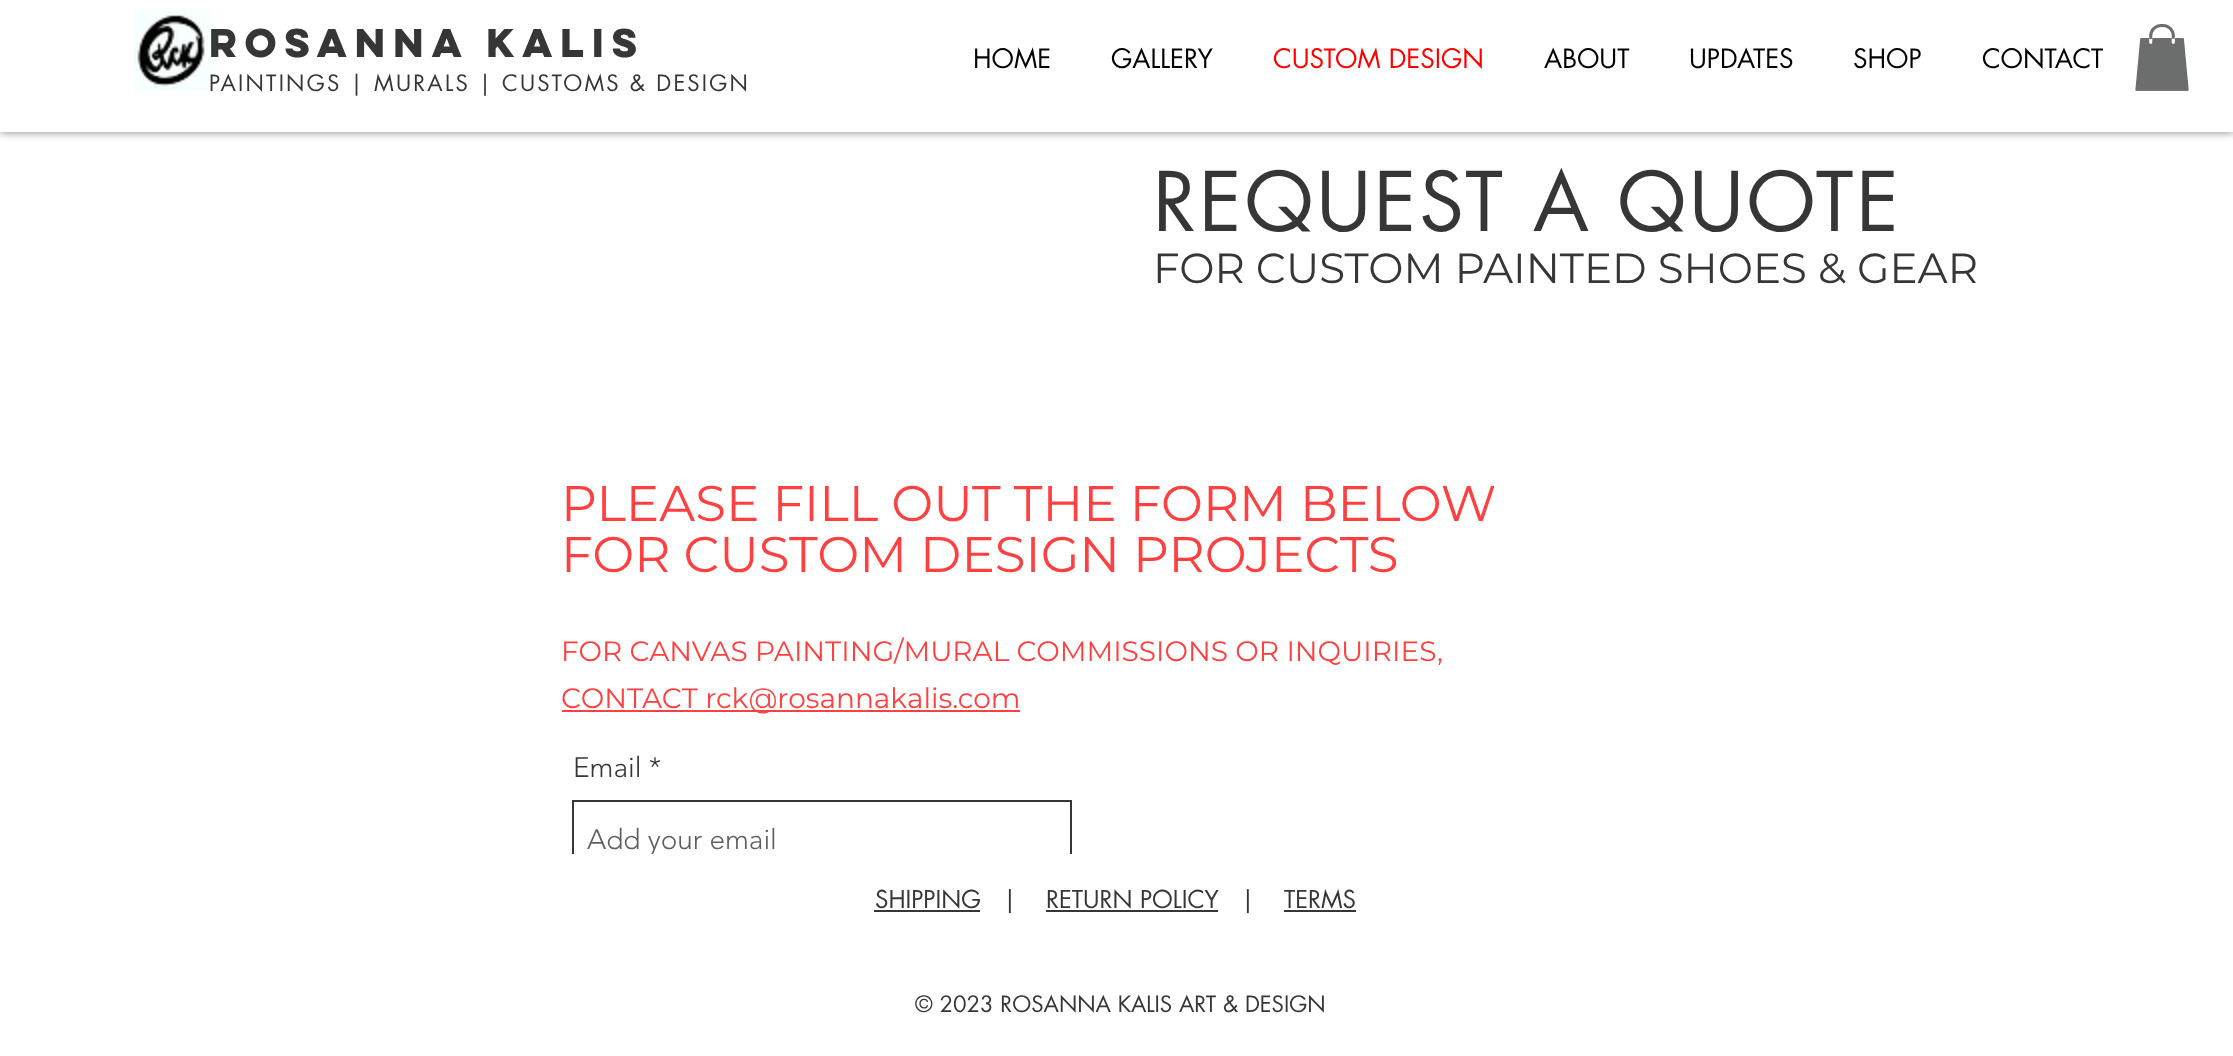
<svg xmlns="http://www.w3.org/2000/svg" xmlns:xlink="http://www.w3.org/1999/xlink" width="2233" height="1056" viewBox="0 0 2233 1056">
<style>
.cls-1{font:bold 36px 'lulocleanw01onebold';fill:#363636}
.cls-2{font:26px futura;fill:#000000}
.cls-3{font:26px futura;fill:#ff0000}
.cls-4{font:22px futura;letter-spacing:2.2px;fill:#363636}
.cls-5{font:80px futura;letter-spacing:2.75px;fill:#363636}
.cls-6{font:42px Montserrat;fill:#363636}
.cls-7{font:50px Montserrat;fill:#ff4040}
.cls-8{font:28px Montserrat;fill:#ff4040}
.cls-9{font:300 28px 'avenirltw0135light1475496';fill:#363636}
.cls-10{font:300 28px 'avenirltw0135light1475496';fill:#605e5e}
.cls-11{font:24px futura;fill:#363636}
.cls-12{font:22px futura;fill:#363636}
</style>
<defs>
<clipPath id="clip1"><rect x="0" y="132" width="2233" height="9"/></clipPath>
</defs>
<rect width="100%" height="100%" fill="#ffffff"/>
<g clip-path="url(#clip1)">
<rect fill="#000000" fill-opacity="0.5" filter="blur(5px)" x="0" y="0" width="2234" height="132"/>
</g>
<image xlink:href="image0.png" x="134" y="8" width="76" height="84"/>
<image xlink:href="image1.png" x="2135" y="24" width="54" height="67"/>
<rect fill="#ff4040" x="562" y="710" width="458" height="2"/>
<rect fill="none" stroke="#363636" stroke-width="2" x="573" y="801" width="498" height="78"/>
<rect fill="#363636" x="874" y="910" width="106" height="2"/>
<rect fill="#363636" x="1046" y="910" width="172" height="2"/>
<rect fill="#363636" x="1284" y="910" width="72" height="2"/>
<text class="cls-1" x="209" y="57">ROSANNA KALIS</text>
<text class="cls-2" x="973" y="68">HOME</text>
<text class="cls-2" x="1111" y="68">GALLERY</text>
<text class="cls-3" x="1273" y="68">CUSTOM DESIGN</text>
<text class="cls-2" x="1544" y="68">ABOUT</text>
<text class="cls-2" x="1689" y="68">UPDATES</text>
<text class="cls-2" x="1853" y="68">SHOP</text>
<text class="cls-2" x="1982" y="68">CONTACT</text>
<text class="cls-4" x="209" y="91">PAINTINGS | MURALS | CUSTOMS &amp; DESIGN</text>
<text class="cls-5" x="1153" y="231">REQUEST A QUOTE</text>
<text class="cls-6" x="1153" y="283">FOR CUSTOM PAINTED SHOES &amp; GEAR</text>
<text class="cls-7"><tspan x="561" y="521">PLEASE FILL OUT THE FORM BELOW</tspan><tspan x="561" y="572">FOR CUSTOM DESIGN PROJECTS</tspan></text>
<text class="cls-8"><tspan x="561" y="661">FOR CANVAS PAINTING/MURAL COMMISSIONS OR INQUIRIES,</tspan><tspan x="561" y="708">CONTACT rck@rosannakalis.com</tspan></text>
<text class="cls-9" x="573" y="777">Email *</text>
<text class="cls-10" x="587" y="849">Add your email</text>
<rect fill="#ffffff" x="572" y="854" width="500" height="26"/>
<text class="cls-11" x="875" y="908">SHIPPING</text>
<text class="cls-11" x="1003" y="908">|</text>
<text class="cls-11" x="1046" y="908">RETURN POLICY</text>
<text class="cls-11" x="1241" y="908">|</text>
<text class="cls-11" x="1284" y="908">TERMS</text>
<text class="cls-12" x="915" y="1012">© 2023 ROSANNA KALIS ART &amp; DESIGN</text>
</svg>
